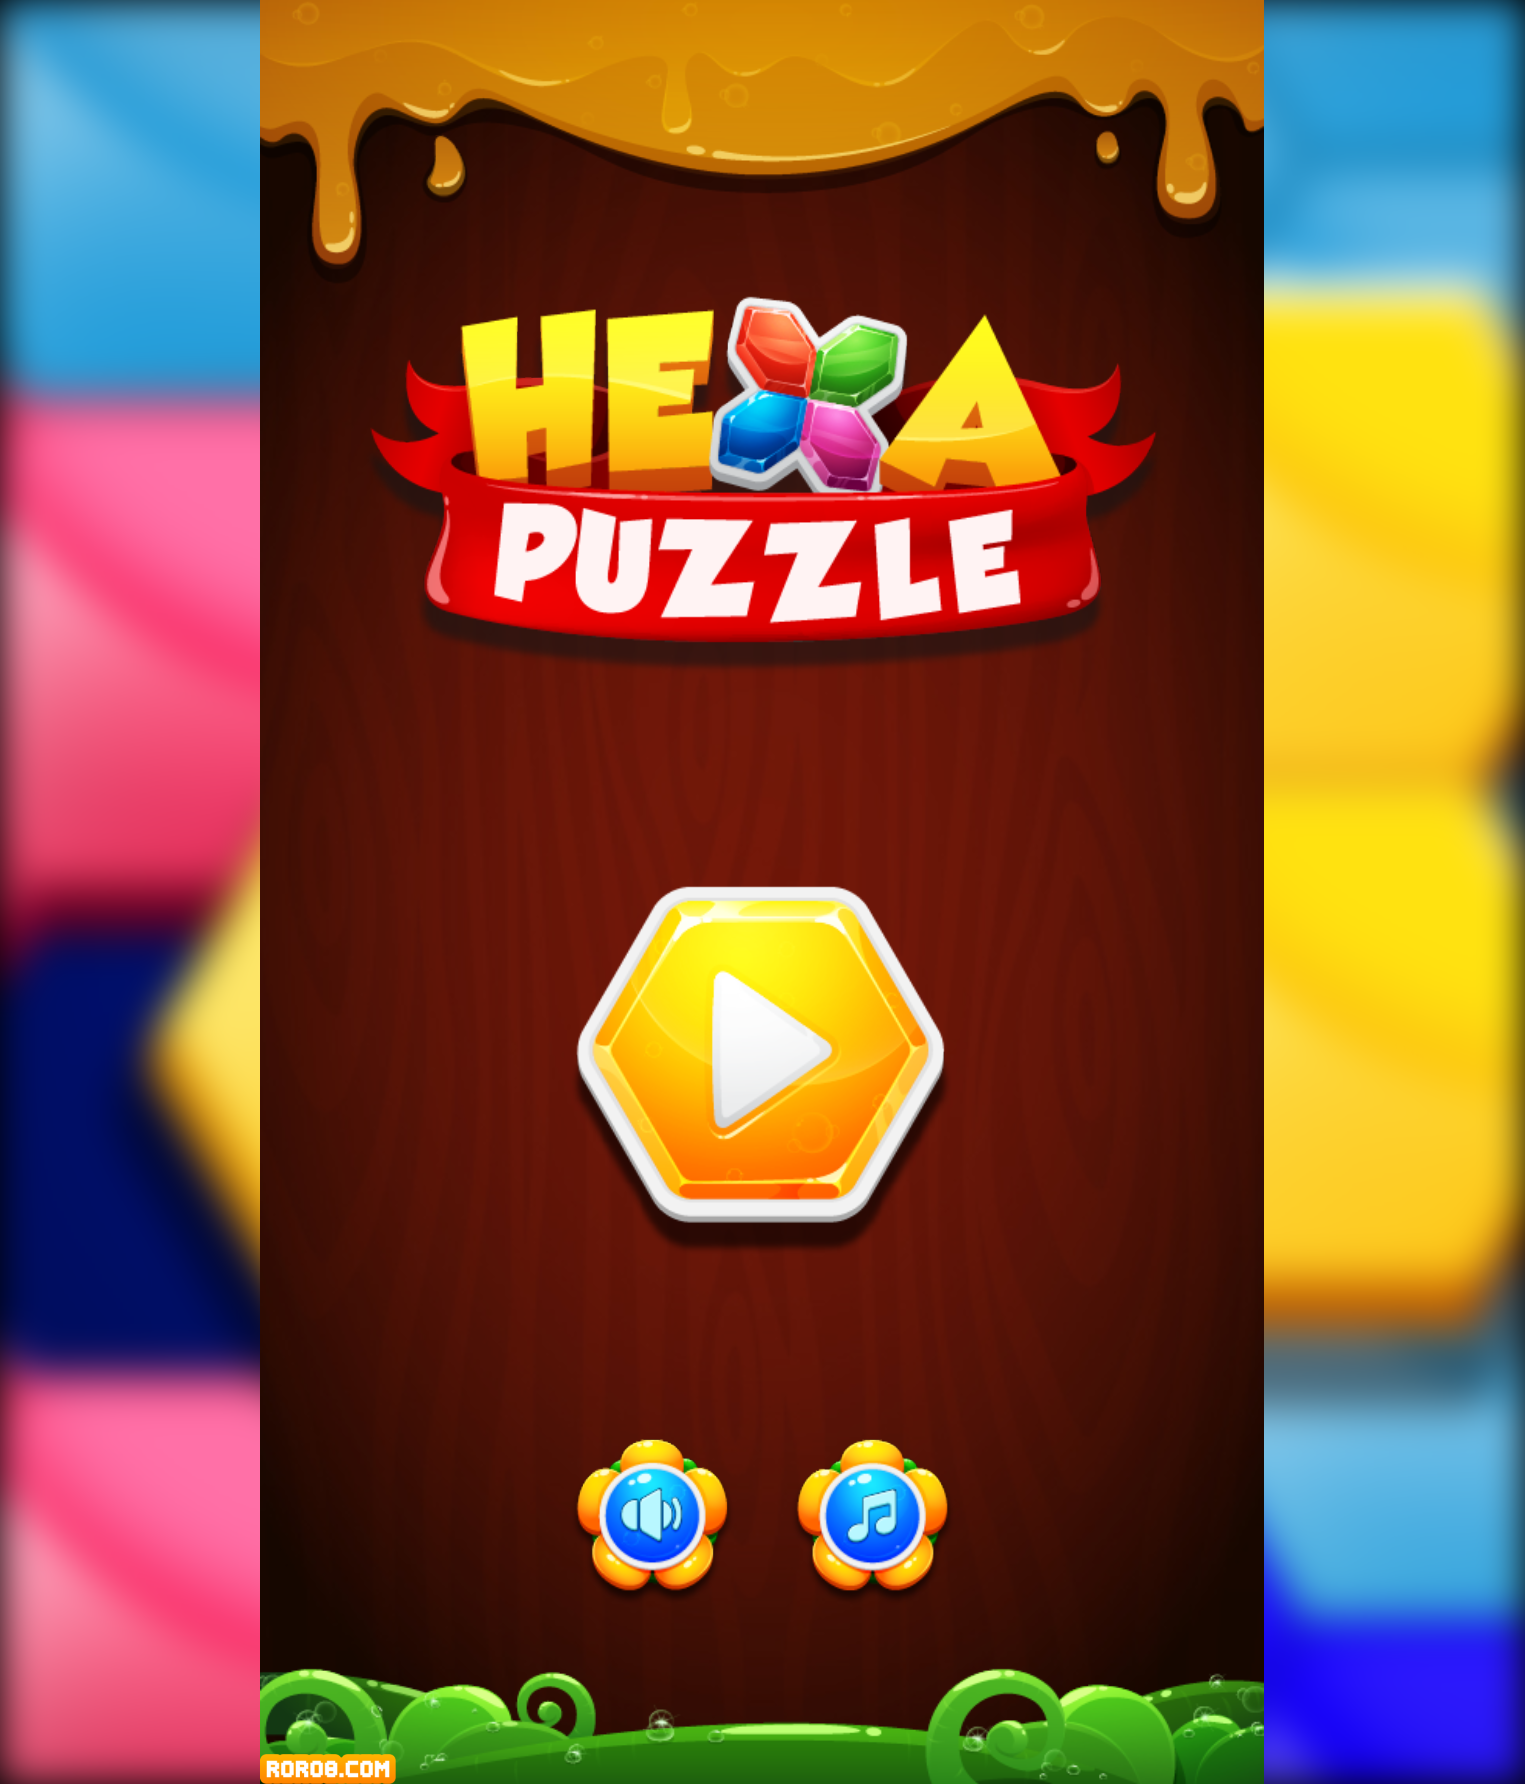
<svg xmlns="http://www.w3.org/2000/svg" xmlns:xlink="http://www.w3.org/1999/xlink" width="1525" height="1784" viewBox="0 0 1525 1784">
<rect width="100%" height="100%" fill="#000000"/>
<image xlink:href="image0.png" x="0" y="0" width="1525" height="1784"/>
<image xlink:href="image1.png" x="260" y="0" width="1004" height="1784"/>
<image xlink:href="image2.png" x="260" y="1754" width="136" height="30"/>
</svg>
